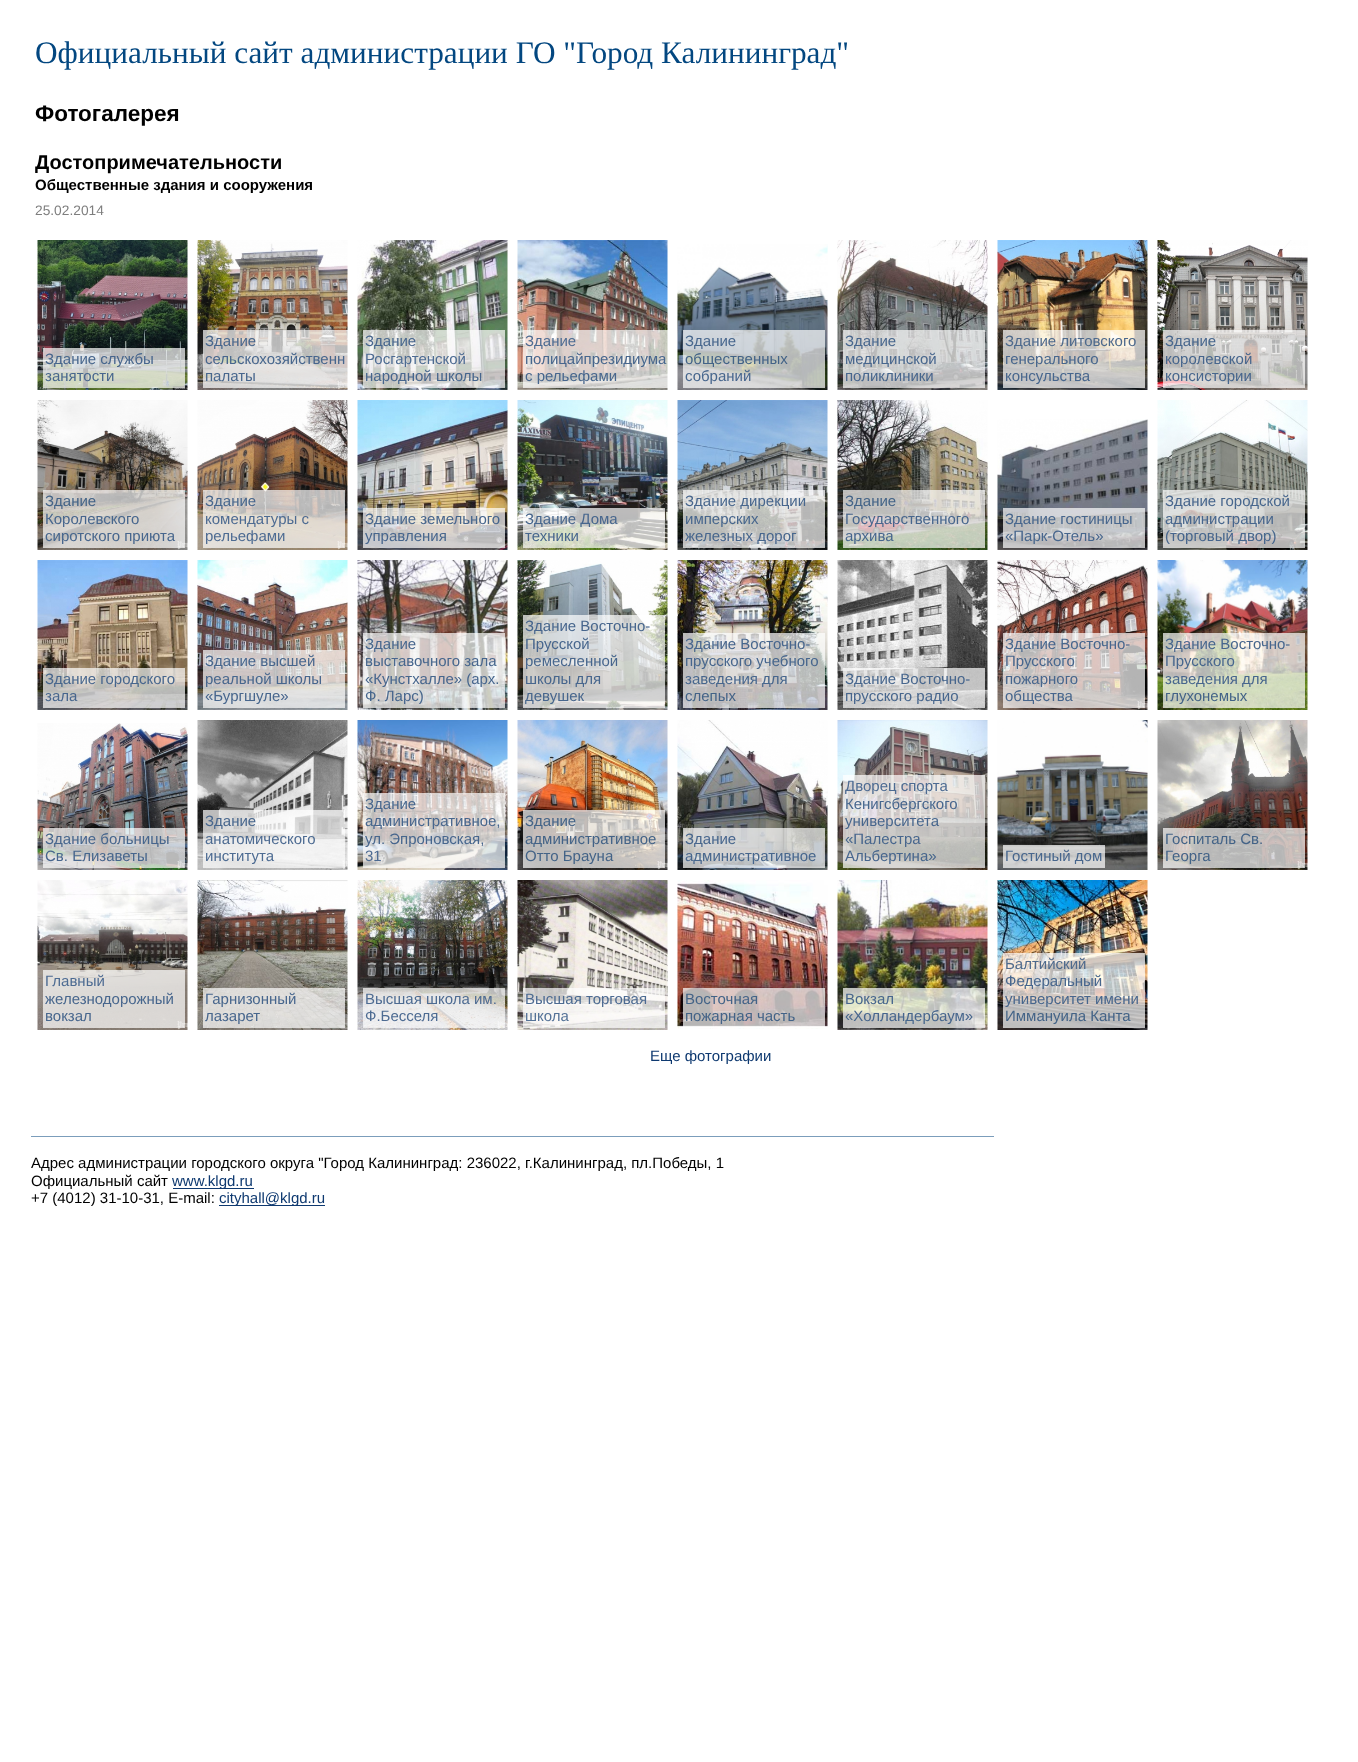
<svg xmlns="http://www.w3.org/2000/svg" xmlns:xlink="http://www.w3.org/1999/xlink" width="1358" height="1762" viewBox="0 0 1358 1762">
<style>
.cls-1{font:31.25px Liberation Serif;fill:#034780}
.cls-2{font:bold 22.5px Liberation Sans;fill:#000000}
.cls-3{font:bold 20px Liberation Sans;fill:#000000}
.cls-4{font:bold 15px Liberation Sans;fill:#000000}
.cls-5{font:13.75px Liberation Sans;fill:#7e7e7e}
.cls-6{font:15px Liberation Sans;fill:#47668d}
.cls-7{font:15px Liberation Sans;fill:#4d6b92}
.cls-8{font:15px Liberation Sans;fill:#436387}
.cls-9{font:15px Liberation Sans;fill:#4d698c}
.cls-10{font:15px Liberation Sans;fill:#547297}
.cls-11{font:15px Liberation Sans;fill:#0e3970}
.cls-12{font:15px Liberation Sans;fill:#000000}
</style>
<rect width="100%" height="100%" fill="#ffffff"/>
<image xlink:href="image0.png" x="37" y="240" width="151" height="150"/>
<rect fill="#ffffff" fill-opacity="0.7" x="43" y="348" width="142" height="40"/>
<image xlink:href="image1.png" x="197" y="240" width="151" height="150"/>
<rect fill="#ffffff" fill-opacity="0.7" x="203" y="330" width="145" height="58"/>
<image xlink:href="image2.png" x="357" y="240" width="151" height="150"/>
<rect fill="#ffffff" fill-opacity="0.7" x="363" y="330" width="142" height="58"/>
<image xlink:href="image3.png" x="517" y="240" width="151" height="150"/>
<rect fill="#ffffff" fill-opacity="0.7" x="523" y="330" width="145" height="58"/>
<image xlink:href="image4.png" x="677" y="244" width="151" height="146"/>
<rect fill="#ffffff" fill-opacity="0.7" x="683" y="330" width="142" height="58"/>
<image xlink:href="image5.png" x="837" y="240" width="151" height="150"/>
<rect fill="#ffffff" fill-opacity="0.7" x="843" y="330" width="142" height="58"/>
<image xlink:href="image6.png" x="997" y="240" width="151" height="150"/>
<rect fill="#ffffff" fill-opacity="0.7" x="1003" y="330" width="142" height="58"/>
<image xlink:href="image7.png" x="1157" y="240" width="151" height="150"/>
<rect fill="#ffffff" fill-opacity="0.7" x="1163" y="330" width="142" height="58"/>
<image xlink:href="image8.png" x="37" y="400" width="151" height="150"/>
<rect fill="#ffffff" fill-opacity="0.7" x="43" y="490" width="142" height="58"/>
<image xlink:href="image9.png" x="197" y="400" width="151" height="150"/>
<rect fill="#ffffff" fill-opacity="0.7" x="203" y="490" width="142" height="58"/>
<image xlink:href="image10.png" x="357" y="400" width="151" height="150"/>
<rect fill="#ffffff" fill-opacity="0.7" x="363" y="508" width="142" height="40"/>
<image xlink:href="image11.png" x="517" y="400" width="151" height="150"/>
<rect fill="#ffffff" fill-opacity="0.7" x="523" y="508" width="142" height="40"/>
<image xlink:href="image12.png" x="677" y="400" width="151" height="150"/>
<rect fill="#ffffff" fill-opacity="0.7" x="683" y="490" width="142" height="58"/>
<image xlink:href="image13.png" x="837" y="400" width="151" height="150"/>
<rect fill="#ffffff" fill-opacity="0.7" x="843" y="490" width="142" height="58"/>
<image xlink:href="image14.png" x="997" y="419" width="151" height="131"/>
<rect fill="#ffffff" fill-opacity="0.7" x="1003" y="508" width="142" height="40"/>
<image xlink:href="image15.png" x="1157" y="400" width="151" height="150"/>
<rect fill="#ffffff" fill-opacity="0.7" x="1163" y="490" width="142" height="58"/>
<image xlink:href="image16.png" x="37" y="560" width="151" height="150"/>
<rect fill="#ffffff" fill-opacity="0.7" x="43" y="668" width="142" height="40"/>
<image xlink:href="image17.png" x="197" y="560" width="151" height="150"/>
<rect fill="#ffffff" fill-opacity="0.7" x="203" y="650" width="142" height="58"/>
<image xlink:href="image18.png" x="357" y="560" width="151" height="150"/>
<rect fill="#ffffff" fill-opacity="0.7" x="363" y="633" width="142" height="75"/>
<image xlink:href="image19.png" x="517" y="560" width="151" height="150"/>
<rect fill="#ffffff" fill-opacity="0.7" x="523" y="615" width="142" height="93"/>
<image xlink:href="image20.png" x="677" y="560" width="151" height="150"/>
<rect fill="#ffffff" fill-opacity="0.7" x="683" y="633" width="142" height="75"/>
<image xlink:href="image21.png" x="837" y="560" width="151" height="150"/>
<rect fill="#ffffff" fill-opacity="0.7" x="843" y="668" width="142" height="40"/>
<image xlink:href="image22.png" x="997" y="560" width="151" height="150"/>
<rect fill="#ffffff" fill-opacity="0.7" x="1003" y="633" width="142" height="75"/>
<image xlink:href="image23.png" x="1157" y="560" width="151" height="150"/>
<rect fill="#ffffff" fill-opacity="0.7" x="1163" y="633" width="142" height="75"/>
<image xlink:href="image24.png" x="37" y="723" width="151" height="147"/>
<rect fill="#ffffff" fill-opacity="0.7" x="43" y="828" width="142" height="40"/>
<image xlink:href="image25.png" x="197" y="720" width="151" height="150"/>
<rect fill="#ffffff" fill-opacity="0.7" x="203" y="810" width="142" height="58"/>
<image xlink:href="image26.png" x="357" y="720" width="151" height="150"/>
<rect fill="#ffffff" fill-opacity="0.7" x="363" y="793" width="142" height="75"/>
<image xlink:href="image27.png" x="517" y="720" width="151" height="150"/>
<rect fill="#ffffff" fill-opacity="0.7" x="523" y="810" width="142" height="58"/>
<image xlink:href="image28.png" x="677" y="720" width="151" height="150"/>
<rect fill="#ffffff" fill-opacity="0.7" x="683" y="828" width="142" height="40"/>
<image xlink:href="image29.png" x="837" y="720" width="151" height="150"/>
<rect fill="#ffffff" fill-opacity="0.7" x="843" y="775" width="142" height="93"/>
<image xlink:href="image30.png" x="997" y="720" width="151" height="150"/>
<rect fill="#ffffff" fill-opacity="0.7" x="1003" y="845" width="102" height="23"/>
<image xlink:href="image31.png" x="1157" y="720" width="151" height="150"/>
<rect fill="#ffffff" fill-opacity="0.7" x="1163" y="828" width="142" height="40"/>
<image xlink:href="image32.png" x="37" y="880" width="151" height="150"/>
<rect fill="#ffffff" fill-opacity="0.7" x="43" y="970" width="142" height="58"/>
<image xlink:href="image33.png" x="197" y="880" width="151" height="150"/>
<rect fill="#ffffff" fill-opacity="0.7" x="203" y="988" width="142" height="40"/>
<image xlink:href="image34.png" x="357" y="880" width="151" height="150"/>
<rect fill="#ffffff" fill-opacity="0.7" x="363" y="988" width="142" height="40"/>
<image xlink:href="image35.png" x="517" y="880" width="151" height="150"/>
<rect fill="#ffffff" fill-opacity="0.7" x="523" y="988" width="142" height="40"/>
<image xlink:href="image36.png" x="677" y="880" width="151" height="149"/>
<rect fill="#ffffff" fill-opacity="0.7" x="683" y="988" width="142" height="40"/>
<image xlink:href="image37.png" x="837" y="880" width="151" height="150"/>
<rect fill="#ffffff" fill-opacity="0.7" x="843" y="988" width="142" height="40"/>
<image xlink:href="image38.png" x="997" y="880" width="151" height="150"/>
<rect fill="#ffffff" fill-opacity="0.7" x="1003" y="953" width="142" height="75"/>
<rect fill="#7b9dbb" x="31" y="1136" width="963" height="1"/>
<rect fill="#0e3970" x="173" y="1188" width="81" height="1"/>
<rect fill="#0e3970" x="219" y="1205" width="106" height="1"/>
<text class="cls-1" x="35" y="63">Официальный сайт администрации ГО "Город Калининград"</text>
<text class="cls-2" x="35" y="121">Фотогалерея</text>
<text class="cls-3" x="35" y="169">Достопримечательности</text>
<text class="cls-4" x="35" y="190">Общественные здания и сооружения</text>
<text class="cls-5" x="35" y="215">25.02.2014</text>
<text class="cls-6"><tspan x="45" y="364">Здание службы</tspan><tspan x="45" y="381">занятости</tspan></text>
<text class="cls-6"><tspan x="205" y="346">Здание</tspan><tspan x="205" y="364">сельскохозяйственн</tspan><tspan x="205" y="381">палаты</tspan></text>
<text class="cls-6" x="365" y="346">Здание</text>
<text class="cls-7" x="365" y="364">Росгартенской</text>
<text class="cls-6" x="365" y="381">народной школы</text>
<text class="cls-7" x="525" y="346">Здание</text>
<text class="cls-6"><tspan x="525" y="364">полицайпрезидиума</tspan><tspan x="525" y="381">с рельефами</tspan></text>
<text class="cls-6" x="685" y="346">Здание</text>
<text class="cls-8" x="685" y="364">общественных</text>
<text class="cls-6" x="685" y="381">собраний</text>
<text class="cls-6"><tspan x="845" y="346">Здание</tspan><tspan x="845" y="364">медицинской</tspan><tspan x="845" y="381">поликлиники</tspan></text>
<text class="cls-9" x="1005" y="346">Здание литовского</text>
<text class="cls-6"><tspan x="1005" y="364">генерального</tspan><tspan x="1005" y="381">консульства</tspan></text>
<text class="cls-6"><tspan x="1165" y="346">Здание</tspan><tspan x="1165" y="364">королевской</tspan><tspan x="1165" y="381">консистории</tspan></text>
<text class="cls-8" x="45" y="506">Здание</text>
<text class="cls-6"><tspan x="45" y="524">Королевского</tspan><tspan x="45" y="541">сиротского приюта</tspan></text>
<text class="cls-6" x="205" y="506">Здание</text>
<text class="cls-7"><tspan x="205" y="524">комендатуры с</tspan><tspan x="205" y="541">рельефами</tspan></text>
<text class="cls-6"><tspan x="365" y="524">Здание земельного</tspan><tspan x="365" y="541">управления</tspan></text>
<text class="cls-6"><tspan x="525" y="524">Здание Дома</tspan><tspan x="525" y="541">техники</tspan></text>
<text class="cls-6"><tspan x="685" y="506">Здание дирекции</tspan><tspan x="685" y="524">имперских</tspan><tspan x="685" y="541">железных дорог</tspan></text>
<text class="cls-8" x="845" y="506">Здание</text>
<text class="cls-6"><tspan x="845" y="524">Государственного</tspan><tspan x="845" y="541">архива</tspan></text>
<text class="cls-6"><tspan x="1005" y="524">Здание гостиницы</tspan><tspan x="1005" y="541">«Парк-Отель»</tspan></text>
<text class="cls-6"><tspan x="1165" y="506">Здание городской</tspan><tspan x="1165" y="524">администрации</tspan><tspan x="1165" y="541">(торговый двор)</tspan></text>
<text class="cls-6"><tspan x="45" y="684">Здание городского</tspan><tspan x="45" y="701">зала</tspan></text>
<text class="cls-6"><tspan x="205" y="666">Здание высшей</tspan><tspan x="205" y="684">реальной школы</tspan><tspan x="205" y="701">«Бургшуле»</tspan></text>
<text class="cls-6"><tspan x="365" y="649">Здание</tspan><tspan x="365" y="666">выставочного зала</tspan><tspan x="365" y="684">«Кунстхалле» (арх.</tspan><tspan x="365" y="701">Ф. Ларс)</tspan></text>
<text class="cls-6"><tspan x="525" y="631">Здание Восточно-</tspan><tspan x="525" y="649">Прусской</tspan><tspan x="525" y="666">ремесленной</tspan><tspan x="525" y="684">школы для</tspan><tspan x="525" y="701">девушек</tspan></text>
<text class="cls-6"><tspan x="685" y="649">Здание Восточно-</tspan><tspan x="685" y="666">прусского учебного</tspan><tspan x="685" y="684">заведения для</tspan></text>
<text class="cls-8" x="685" y="701">слепых</text>
<text class="cls-6"><tspan x="845" y="684">Здание Восточно-</tspan><tspan x="845" y="701">прусского радио</tspan></text>
<text class="cls-6"><tspan x="1005" y="649">Здание Восточно-</tspan><tspan x="1005" y="666">Прусского</tspan><tspan x="1005" y="684">пожарного</tspan><tspan x="1005" y="701">общества</tspan></text>
<text class="cls-6"><tspan x="1165" y="649">Здание Восточно-</tspan><tspan x="1165" y="666">Прусского</tspan><tspan x="1165" y="684">заведения для</tspan></text>
<text class="cls-8" x="1165" y="701">глухонемых</text>
<text class="cls-6"><tspan x="45" y="844">Здание больницы</tspan><tspan x="45" y="861">Св. Елизаветы</tspan></text>
<text class="cls-6" x="205" y="826">Здание</text>
<text class="cls-7"><tspan x="205" y="844">анатомического</tspan><tspan x="205" y="861">института</tspan></text>
<text class="cls-6"><tspan x="365" y="809">Здание</tspan><tspan x="365" y="826">административное,</tspan><tspan x="365" y="844">ул. Эпроновская,</tspan></text>
<text class="cls-7" x="365" y="861">31</text>
<text class="cls-8"><tspan x="525" y="826">Здание</tspan><tspan x="525" y="844">административное</tspan><tspan x="525" y="861">Отто Брауна</tspan></text>
<text class="cls-6"><tspan x="685" y="844">Здание</tspan><tspan x="685" y="861">административное</tspan></text>
<text class="cls-7" x="845" y="791">Дворец спорта</text>
<text class="cls-6"><tspan x="845" y="809">Кенигсбергского</tspan><tspan x="845" y="826">университета</tspan><tspan x="845" y="844">«Палестра</tspan><tspan x="845" y="861">Альбертина»</tspan></text>
<text class="cls-6" x="1005" y="861">Гостиный дом</text>
<text class="cls-8"><tspan x="1165" y="844">Госпиталь Св.</tspan><tspan x="1165" y="861">Георга</tspan></text>
<text class="cls-7" x="45" y="986">Главный</text>
<text class="cls-6"><tspan x="45" y="1004">железнодорожный</tspan><tspan x="45" y="1021">вокзал</tspan></text>
<text class="cls-6"><tspan x="205" y="1004">Гарнизонный</tspan><tspan x="205" y="1021">лазарет</tspan></text>
<text class="cls-7"><tspan x="365" y="1004">Высшая школа им.</tspan><tspan x="365" y="1021">Ф.Бесселя</tspan></text>
<text class="cls-7" x="525" y="1004">Высшая торговая</text>
<text class="cls-10" x="525" y="1021">школа</text>
<text class="cls-8"><tspan x="685" y="1004">Восточная</tspan><tspan x="685" y="1021">пожарная часть</tspan></text>
<text class="cls-6"><tspan x="845" y="1004">Вокзал</tspan><tspan x="845" y="1021">«Холландербаум»</tspan></text>
<text class="cls-9" x="1005" y="969">Балтийский</text>
<text class="cls-6"><tspan x="1005" y="986">Федеральный</tspan><tspan x="1005" y="1004">университет имени</tspan></text>
<text class="cls-8" x="1005" y="1021">Иммануила Канта</text>
<text class="cls-11" x="650" y="1061">Еще фотографии</text>
<text class="cls-12"><tspan x="31" y="1168">Адрес администрации городского округа "Город Калининград: 236022, г.Калининград, пл.Победы, 1</tspan><tspan x="31" y="1186">Официальный сайт</tspan></text>
<text class="cls-11" x="172" y="1186">www.klgd.ru</text>
<text class="cls-12" x="31" y="1203">+7 (4012) 31-10-31, E-mail:</text>
<text class="cls-11" x="219" y="1203">cityhall@klgd.ru</text>
</svg>
